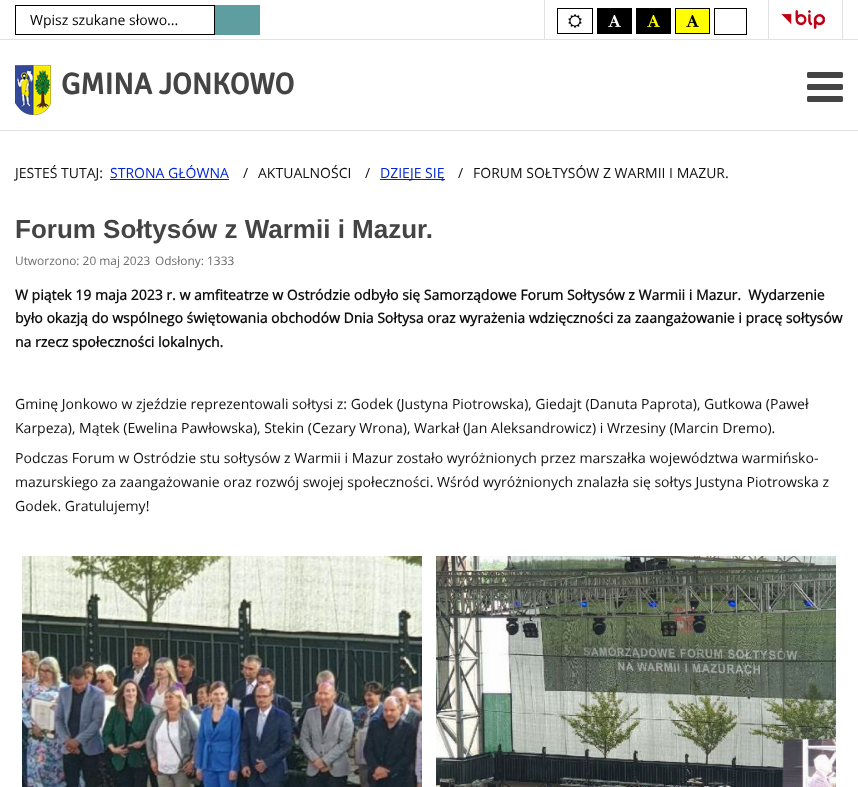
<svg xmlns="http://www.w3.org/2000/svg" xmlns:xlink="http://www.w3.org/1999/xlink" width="858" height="787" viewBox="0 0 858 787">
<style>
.cls-1{font:14px Open Sans;fill:#000000}
.cls-2{font:bold 30px Signika;fill:#444444}
.cls-3{font:14px Open Sans;fill:#101010}
.cls-4{font:14px Open Sans;fill:#0025da}
.cls-5{font:bold 26px Liberation Sans;fill:#444444}
.cls-6{font:11.9px Open Sans;fill:#6d6d6d}
.cls-7{font:bold 14px Open Sans;fill:#101010}
</style>
<rect width="100%" height="100%" fill="#ffffff"/>
<rect fill="#e2e2e2" x="0" y="130" width="858" height="1"/>
<rect fill="#e2e2e2" x="0" y="39" width="858" height="1"/>
<rect fill="none" stroke="#000000" x="15.5" y="5.5" width="199" height="29"/>
<rect fill="#5f9ea0" x="215" y="5" width="45" height="30"/>
<rect fill="none" stroke="#e2e2e2" x="544.5" y="-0.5" width="224" height="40"/>
<rect fill="none" stroke="#000000" x="557.5" y="8.5" width="35" height="25"/>
<image xlink:href="image0.png" x="568" y="14" width="14" height="14"/>
<rect fill="#000000" x="597" y="8" width="35" height="26"/>
<image xlink:href="image1.png" x="608" y="15" width="13" height="12"/>
<rect fill="#000000" x="636" y="8" width="35" height="26"/>
<image xlink:href="image2.png" x="647" y="15" width="13" height="12"/>
<rect fill="#ffff00" stroke="#000000" x="675.5" y="8.5" width="34" height="25"/>
<image xlink:href="image3.png" x="686" y="15" width="13" height="12"/>
<rect fill="none" stroke="#000000" x="714.5" y="8.5" width="32" height="26"/>
<rect fill="none" stroke="#e2e2e2" x="768.5" y="-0.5" width="74" height="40"/>
<image xlink:href="image4.png" x="781" y="10" width="44" height="19"/>
<image xlink:href="image5.png" x="15" y="65" width="36" height="50"/>
<image xlink:href="image6.png" x="807" y="72" width="36" height="30"/>
<rect fill="#0025da" x="110" y="179" width="119" height="1"/>
<rect fill="#0025da" x="380" y="179" width="65" height="1"/>
<image xlink:href="image7.png" x="22" y="556" width="400" height="231"/>
<image xlink:href="image8.png" x="436" y="556" width="400" height="231"/>
<text class="cls-1" x="30" y="25">Wpisz szukane słowo...</text>
<text class="cls-2" x="61" y="94">GMINA JONKOWO</text>
<text class="cls-3" x="15" y="178">JESTEŚ TUTAJ:</text>
<text class="cls-4" x="110" y="178">STRONA GŁÓWNA</text>
<text class="cls-3" x="243" y="178">/</text>
<text class="cls-3" x="258" y="178">AKTUALNOŚCI</text>
<text class="cls-3" x="365" y="178">/</text>
<text class="cls-4" x="380" y="178">DZIEJE SIĘ</text>
<text class="cls-3" x="458" y="178">/</text>
<text class="cls-3" x="473" y="178">FORUM SOŁTYSÓW Z WARMII I MAZUR.</text>
<text class="cls-5" x="15" y="238">Forum Sołtysów z Warmii i Mazur.</text>
<text class="cls-6" x="15" y="265">Utworzono: 20 maj 2023</text>
<text class="cls-6" x="155" y="265">Odsłony: 1333</text>
<text class="cls-7" xml:space="preserve"><tspan x="15" y="300">W piątek 19 maja 2023 r. w amfiteatrze w Ostródzie odbyło się Samorządowe Forum Sołtysów z Warmii i Mazur.  Wydarzenie</tspan><tspan x="15" y="323">było okazją do wspólnego świętowania obchodów Dnia Sołtysa oraz wyrażenia wdzięczności za zaangażowanie i pracę sołtysów</tspan><tspan x="15" y="347">na rzecz społeczności lokalnych.</tspan></text>
<text class="cls-3"><tspan x="15" y="409">Gminę Jonkowo w zjeździe reprezentowali sołtysi z: Godek (Justyna Piotrowska), Giedajt (Danuta Paprota), Gutkowa (Paweł</tspan><tspan x="15" y="433">Karpeza), Mątek (Ewelina Pawłowska), Stekin (Cezary Wrona), Warkał (Jan Aleksandrowicz) i Wrzesiny (Marcin Dremo).</tspan></text>
<text class="cls-3"><tspan x="15" y="463">Podczas Forum w Ostródzie stu sołtysów z Warmii i Mazur zostało wyróżnionych przez marszałka województwa warmińsko-</tspan><tspan x="15" y="487">mazurskiego za zaangażowanie oraz rozwój swojej społeczności. Wśród wyróżnionych znalazła się sołtys Justyna Piotrowska z</tspan><tspan x="15" y="511">Godek. Gratulujemy!</tspan></text>
</svg>
